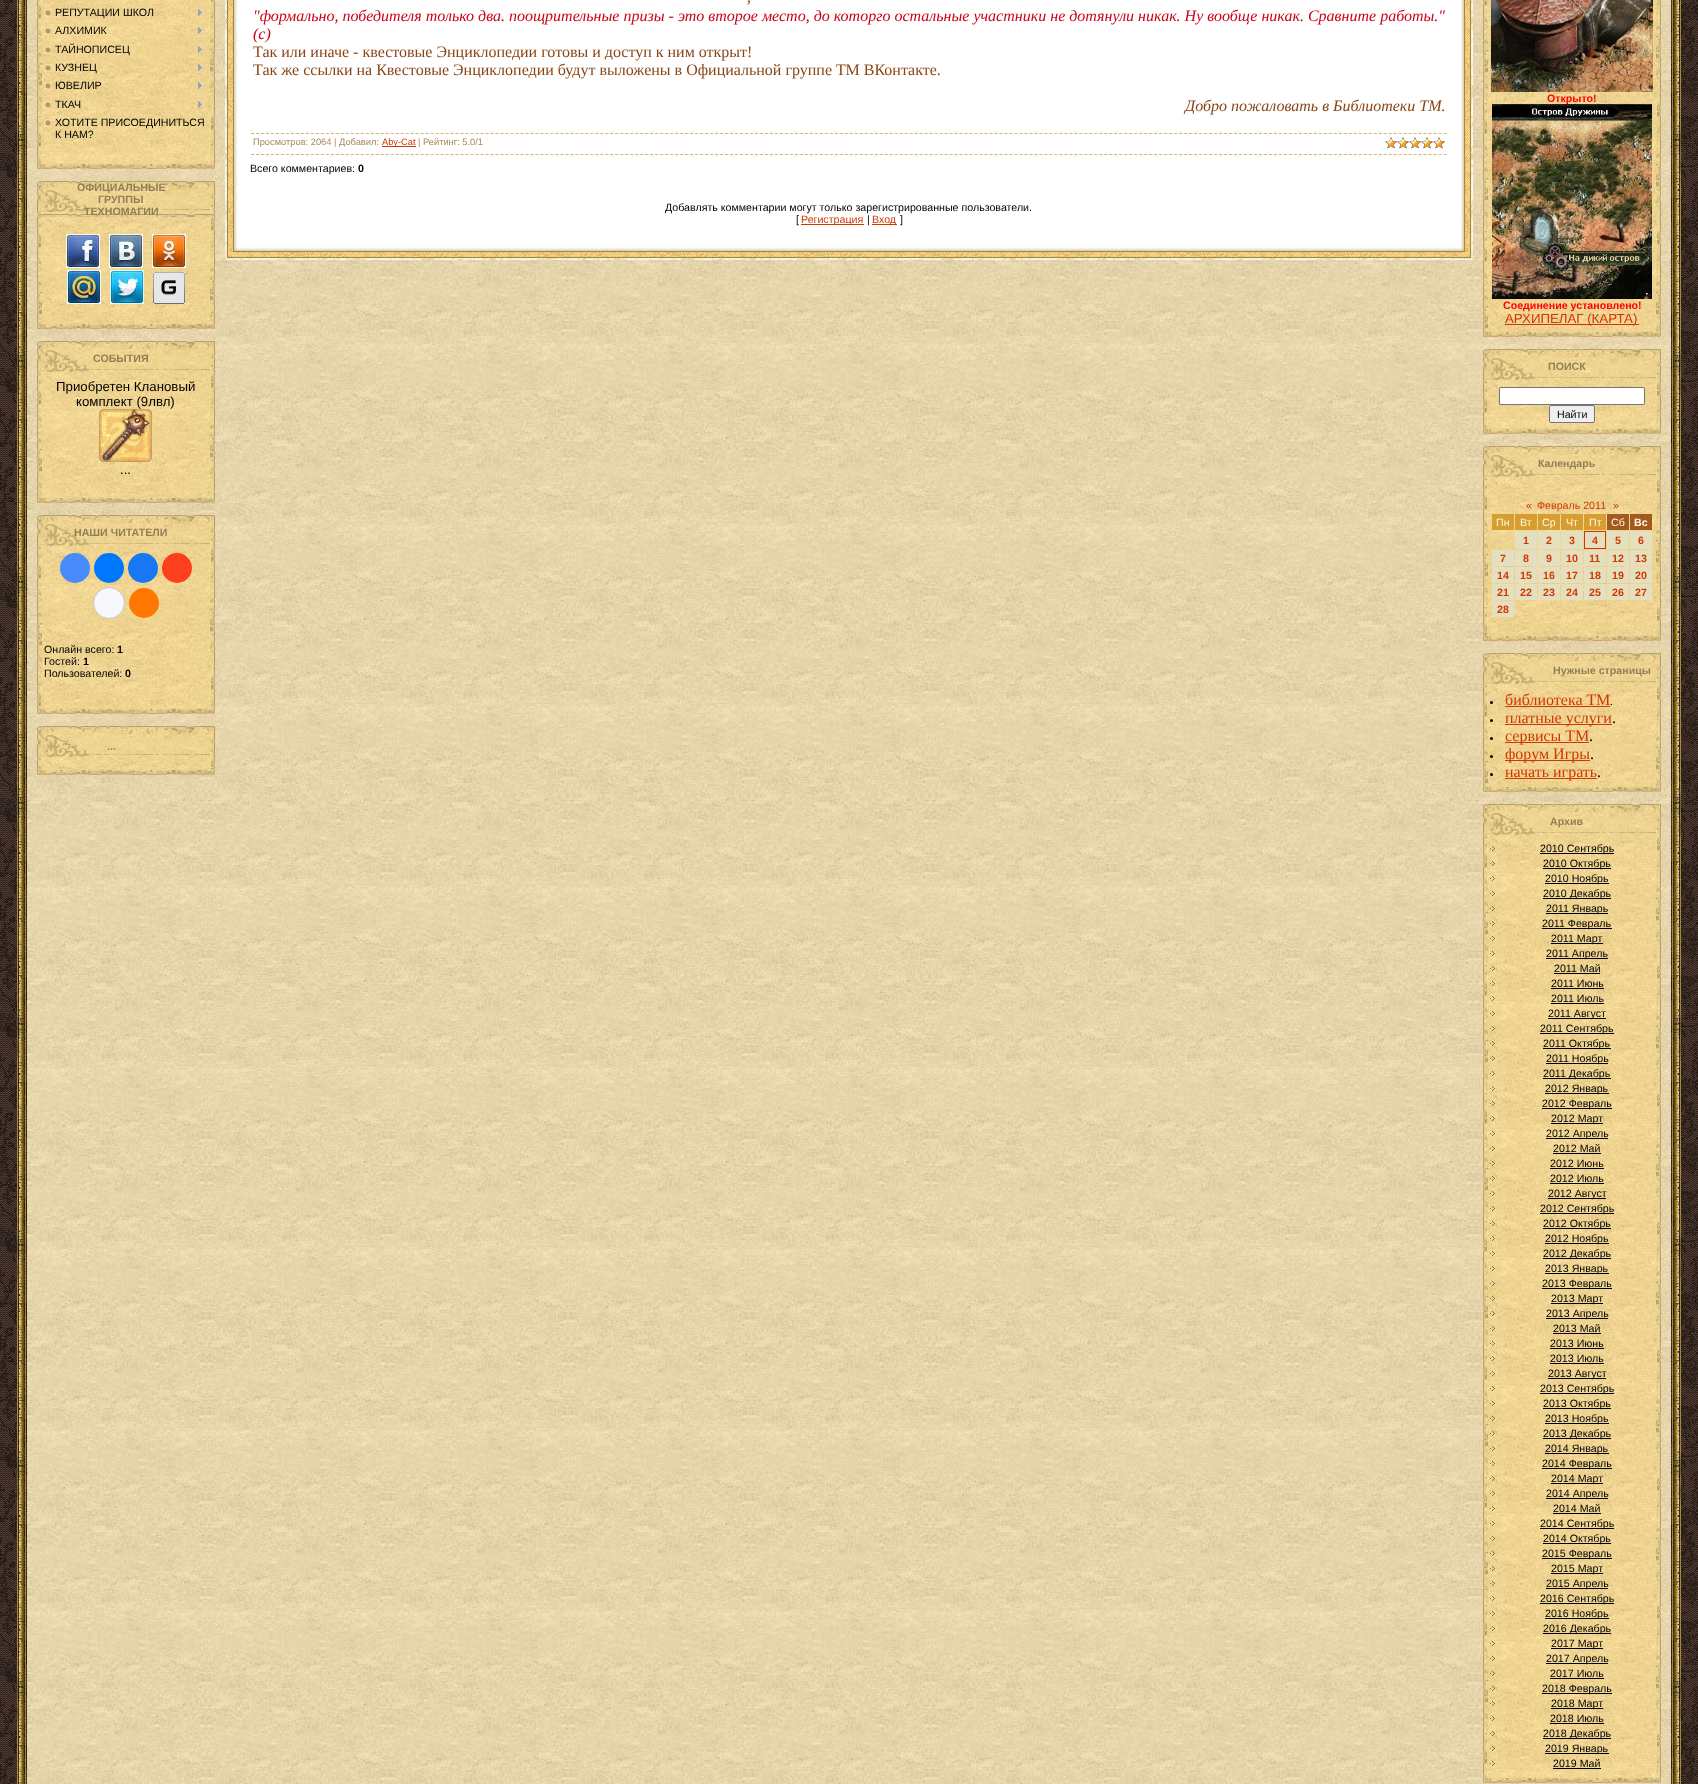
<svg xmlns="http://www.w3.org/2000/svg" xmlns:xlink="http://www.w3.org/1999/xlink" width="1698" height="1784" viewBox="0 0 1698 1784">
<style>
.cls-1{font:10.65px Liberation Sans;fill:#000000}
.cls-2{font:bold 10.65px Liberation Sans;fill:#8f7f55}
.cls-3{font:13.25px Liberation Sans;fill:#000000}
.cls-4{font:bold 10.65px Liberation Sans;fill:#000000}
.cls-5{font:16px Liberation Serif;fill:#8b4513}
.cls-6{font:italic 16px Liberation Serif;fill:#cc0017}
.cls-7{font:italic 16px Liberation Serif;fill:#8b4513}
.cls-8{font:9.3px Liberation Sans;fill:#a88956}
.cls-9{font:9.3px Liberation Sans;fill:#d13702}
.cls-10{font:10.65px Liberation Sans;fill:#d13702}
.cls-11{font:bold 10.65px Liberation Sans;fill:#ff0000}
.cls-12{font:13.25px Liberation Sans;fill:#d13702}
.cls-13{font:10.65px Liberation Sans;fill:#fffadf}
.cls-14{font:bold 10.65px Liberation Sans;fill:#fffadf}
.cls-15{font:bold 10.65px Liberation Sans;fill:#d13702}
.cls-16{font:16px Liberation Serif;fill:#d13702}
.cls-17{font:10.65px Liberation Serif;fill:#000000}
.cls-18{font:16px Liberation Serif;fill:#000000}
</style>
<rect width="100%" height="100%" fill="#ffffff"/>
<image xlink:href="image0.png" x="0" y="0" width="1698" height="1784"/>
<image xlink:href="image1.png" x="17" y="0" width="10" height="1784"/>
<image xlink:href="image2.png" x="27" y="0" width="1644" height="1784"/>
<image xlink:href="image3.png" x="37" y="0" width="178" height="163"/>
<image xlink:href="image4.png" x="44" y="9" width="8" height="8"/>
<image xlink:href="image5.png" x="198" y="9" width="4" height="7"/>
<image xlink:href="image4.png" x="44" y="27" width="8" height="8"/>
<image xlink:href="image6.png" x="198" y="27" width="4" height="7"/>
<image xlink:href="image4.png" x="44" y="46" width="8" height="8"/>
<image xlink:href="image7.png" x="198" y="46" width="4" height="7"/>
<image xlink:href="image4.png" x="44" y="64" width="8" height="8"/>
<image xlink:href="image8.png" x="198" y="64" width="4" height="7"/>
<image xlink:href="image4.png" x="44" y="82" width="8" height="8"/>
<image xlink:href="image9.png" x="198" y="82" width="4" height="7"/>
<image xlink:href="image4.png" x="44" y="101" width="8" height="8"/>
<image xlink:href="image10.png" x="198" y="101" width="4" height="7"/>
<image xlink:href="image4.png" x="44" y="119" width="8" height="8"/>
<image xlink:href="image11.png" x="37" y="163" width="178" height="6"/>
<image xlink:href="image12.png" x="37" y="181" width="178" height="36"/>
<image xlink:href="image13.png" x="37" y="217" width="178" height="106"/>
<image xlink:href="image14.png" x="66" y="234" width="34" height="34"/>
<image xlink:href="image15.png" x="109" y="234" width="34" height="34"/>
<image xlink:href="image16.png" x="152" y="234" width="34" height="34"/>
<image xlink:href="image17.png" x="67" y="270" width="34" height="34"/>
<image xlink:href="image18.png" x="110" y="270" width="34" height="34"/>
<image xlink:href="image19.png" x="153" y="272" width="32" height="32"/>
<image xlink:href="image11.png" x="37" y="323" width="178" height="6"/>
<image xlink:href="image20.png" x="37" y="341" width="178" height="33"/>
<image xlink:href="image21.png" x="37" y="374" width="178" height="123"/>
<image xlink:href="image22.png" x="99" y="409" width="53" height="53"/>
<image xlink:href="image11.png" x="37" y="497" width="178" height="6"/>
<image xlink:href="image20.png" x="37" y="515" width="178" height="33"/>
<image xlink:href="image23.png" x="37" y="548" width="178" height="160"/>
<circle fill="#498bfa" cx="75" cy="568" r="15"/>
<circle fill="#0077ff" cx="109" cy="568" r="15"/>
<circle fill="#1877f2" cx="143" cy="568" r="15"/>
<circle fill="#fc3f1d" cx="177" cy="568" r="15"/>
<circle fill="#f8f8fc" stroke="#c4c4c4" cx="109" cy="603" r="15.5"/>
<circle fill="#ff7700" cx="144" cy="603" r="15"/>
<image xlink:href="image11.png" x="37" y="708" width="178" height="6"/>
<image xlink:href="image20.png" x="37" y="726" width="178" height="33"/>
<image xlink:href="image24.png" x="37" y="759" width="178" height="10"/>
<image xlink:href="image11.png" x="37" y="769" width="178" height="6"/>
<image xlink:href="image25.png" x="225" y="0" width="15" height="245"/>
<rect fill="#ffffff" x="240" y="0" width="1218" height="245"/>
<path fill="none" stroke="#dbb270" stroke-dasharray="3 1.99" d="M251 133.5H1447"/>
<path fill="none" stroke="#dbb270" stroke-dasharray="3 1.99" d="M251 154.5H1447"/>
<rect fill="#d13702" x="382" y="146" width="34" height="1"/>
<image xlink:href="image26.png" x="1385" y="137" width="60" height="12"/>
<image xlink:href="image27.png" x="1385" y="137" width="60" height="12"/>
<rect fill="#d13702" x="801" y="224" width="63" height="1"/>
<rect fill="#d13702" x="872" y="224" width="25" height="1"/>
<image xlink:href="image28.png" x="1458" y="0" width="15" height="245"/>
<image xlink:href="image29.png" x="225" y="245" width="15" height="15"/>
<image xlink:href="image30.png" x="240" y="245" width="1218" height="15"/>
<image xlink:href="image31.png" x="1458" y="245" width="15" height="15"/>
<image xlink:href="image32.png" x="1483" y="0" width="178" height="331"/>
<image xlink:href="image33.png" x="1491" y="0" width="162" height="92"/>
<rect fill="#d13702" x="1505" y="324" width="134" height="1"/>
<image xlink:href="image11.png" x="1483" y="331" width="178" height="6"/>
<image xlink:href="image20.png" x="1483" y="349" width="178" height="33"/>
<image xlink:href="image35.png" x="1483" y="382" width="178" height="46"/>
<rect fill="#ffffff" stroke="#767676" x="1499.5" y="387.5" width="145" height="17" rx="1.5"/>
<rect fill="#efefef" stroke="#767676" x="1549.5" y="405.5" width="45" height="17" rx="1.5"/>
<image xlink:href="image11.png" x="1483" y="428" width="178" height="6"/>
<image xlink:href="image20.png" x="1483" y="446" width="178" height="33"/>
<image xlink:href="image36.png" x="1483" y="479" width="178" height="156"/>
<rect fill="#d69d30" x="1492" y="514" width="22" height="16"/>
<rect fill="#d69d30" x="1515" y="514" width="22" height="16"/>
<rect fill="#d69d30" x="1538" y="514" width="22" height="16"/>
<rect fill="#d69d30" x="1561" y="514" width="22" height="16"/>
<rect fill="#d69d30" x="1584" y="514" width="22" height="16"/>
<rect fill="#a35a1e" x="1607" y="514" width="22" height="16"/>
<rect fill="#a35a1e" x="1630" y="514" width="22" height="16"/>
<rect fill="#e4dfbe" x="1515" y="531" width="22" height="18"/>
<rect fill="#e4dfbe" x="1538" y="531" width="22" height="18"/>
<rect fill="#e4dfbe" x="1561" y="531" width="22" height="18"/>
<rect fill="#e4dfbe" stroke="#d13702" x="1584.5" y="531.5" width="21" height="17"/>
<rect fill="#e4dfbe" x="1607" y="531" width="22" height="18"/>
<rect fill="#e4dfbe" x="1630" y="531" width="22" height="18"/>
<rect fill="#e4dfbe" x="1492" y="550" width="22" height="16"/>
<rect fill="#e4dfbe" x="1515" y="550" width="22" height="16"/>
<rect fill="#e4dfbe" x="1538" y="550" width="22" height="16"/>
<rect fill="#e4dfbe" x="1561" y="550" width="22" height="16"/>
<rect fill="#e4dfbe" x="1584" y="550" width="22" height="16"/>
<rect fill="#e4dfbe" x="1607" y="550" width="22" height="16"/>
<rect fill="#e4dfbe" x="1630" y="550" width="22" height="16"/>
<rect fill="#e4dfbe" x="1492" y="567" width="22" height="16"/>
<rect fill="#e4dfbe" x="1515" y="567" width="22" height="16"/>
<rect fill="#e4dfbe" x="1538" y="567" width="22" height="16"/>
<rect fill="#e4dfbe" x="1561" y="567" width="22" height="16"/>
<rect fill="#e4dfbe" x="1584" y="567" width="22" height="16"/>
<rect fill="#e4dfbe" x="1607" y="567" width="22" height="16"/>
<rect fill="#e4dfbe" x="1630" y="567" width="22" height="16"/>
<rect fill="#e4dfbe" x="1492" y="584" width="22" height="16"/>
<rect fill="#e4dfbe" x="1515" y="584" width="22" height="16"/>
<rect fill="#e4dfbe" x="1538" y="584" width="22" height="16"/>
<rect fill="#e4dfbe" x="1561" y="584" width="22" height="16"/>
<rect fill="#e4dfbe" x="1584" y="584" width="22" height="16"/>
<rect fill="#e4dfbe" x="1607" y="584" width="22" height="16"/>
<rect fill="#e4dfbe" x="1630" y="584" width="22" height="16"/>
<rect fill="#e4dfbe" x="1492" y="601" width="22" height="16"/>
<image xlink:href="image11.png" x="1483" y="635" width="178" height="6"/>
<image xlink:href="image20.png" x="1483" y="653" width="178" height="33"/>
<image xlink:href="image37.png" x="1483" y="686" width="178" height="100"/>
<circle fill="#000000" cx="1491.5" cy="702.5" r="1.5"/>
<rect fill="#d13702" x="1505" y="706" width="105" height="1"/>
<circle fill="#000000" cx="1491.5" cy="720.5" r="1.5"/>
<rect fill="#d13702" x="1505" y="724" width="107" height="1"/>
<circle fill="#000000" cx="1491.5" cy="738.5" r="1.5"/>
<rect fill="#d13702" x="1505" y="742" width="84" height="1"/>
<circle fill="#000000" cx="1491.5" cy="756.5" r="1.5"/>
<rect fill="#d13702" x="1505" y="760" width="85" height="1"/>
<circle fill="#000000" cx="1491.5" cy="774.5" r="1.5"/>
<rect fill="#d13702" x="1505" y="778" width="92" height="1"/>
<image xlink:href="image11.png" x="1483" y="786" width="178" height="6"/>
<image xlink:href="image20.png" x="1483" y="804" width="178" height="33"/>
<image xlink:href="image38.png" x="1483" y="837" width="178" height="940"/>
<image xlink:href="image39.png" x="1490" y="846" width="5" height="5"/>
<rect fill="#000000" x="1540" y="853" width="74" height="1"/>
<image xlink:href="image40.png" x="1490" y="861" width="5" height="5"/>
<rect fill="#000000" x="1543" y="868" width="68" height="1"/>
<image xlink:href="image41.png" x="1490" y="876" width="5" height="5"/>
<rect fill="#000000" x="1545" y="883" width="64" height="1"/>
<image xlink:href="image42.png" x="1490" y="891" width="5" height="5"/>
<rect fill="#000000" x="1543" y="898" width="68" height="1"/>
<image xlink:href="image43.png" x="1490" y="906" width="5" height="5"/>
<rect fill="#000000" x="1546" y="913" width="62" height="1"/>
<image xlink:href="image44.png" x="1490" y="921" width="5" height="5"/>
<rect fill="#000000" x="1542" y="928" width="70" height="1"/>
<image xlink:href="image45.png" x="1490" y="936" width="5" height="5"/>
<rect fill="#000000" x="1551" y="943" width="52" height="1"/>
<image xlink:href="image46.png" x="1490" y="951" width="5" height="5"/>
<rect fill="#000000" x="1546" y="958" width="62" height="1"/>
<image xlink:href="image47.png" x="1490" y="966" width="5" height="5"/>
<rect fill="#000000" x="1554" y="973" width="46" height="1"/>
<image xlink:href="image48.png" x="1490" y="981" width="5" height="5"/>
<rect fill="#000000" x="1551" y="988" width="53" height="1"/>
<image xlink:href="image49.png" x="1490" y="996" width="5" height="5"/>
<rect fill="#000000" x="1551" y="1003" width="53" height="1"/>
<image xlink:href="image50.png" x="1490" y="1011" width="5" height="5"/>
<rect fill="#000000" x="1548" y="1018" width="58" height="1"/>
<image xlink:href="image51.png" x="1490" y="1026" width="5" height="5"/>
<rect fill="#000000" x="1540" y="1033" width="74" height="1"/>
<image xlink:href="image52.png" x="1490" y="1041" width="5" height="5"/>
<rect fill="#000000" x="1543" y="1048" width="68" height="1"/>
<image xlink:href="image53.png" x="1490" y="1056" width="5" height="5"/>
<rect fill="#000000" x="1546" y="1063" width="62" height="1"/>
<image xlink:href="image54.png" x="1490" y="1071" width="5" height="5"/>
<rect fill="#000000" x="1543" y="1078" width="68" height="1"/>
<image xlink:href="image55.png" x="1490" y="1086" width="5" height="5"/>
<rect fill="#000000" x="1545" y="1093" width="64" height="1"/>
<image xlink:href="image56.png" x="1490" y="1101" width="5" height="5"/>
<rect fill="#000000" x="1542" y="1108" width="70" height="1"/>
<image xlink:href="image57.png" x="1490" y="1116" width="5" height="5"/>
<rect fill="#000000" x="1551" y="1123" width="52" height="1"/>
<image xlink:href="image58.png" x="1490" y="1131" width="5" height="5"/>
<rect fill="#000000" x="1546" y="1138" width="62" height="1"/>
<image xlink:href="image59.png" x="1490" y="1146" width="5" height="5"/>
<rect fill="#000000" x="1553" y="1153" width="48" height="1"/>
<image xlink:href="image60.png" x="1490" y="1161" width="5" height="5"/>
<rect fill="#000000" x="1550" y="1168" width="54" height="1"/>
<image xlink:href="image61.png" x="1490" y="1176" width="5" height="5"/>
<rect fill="#000000" x="1550" y="1183" width="54" height="1"/>
<image xlink:href="image62.png" x="1490" y="1191" width="5" height="5"/>
<rect fill="#000000" x="1548" y="1198" width="58" height="1"/>
<image xlink:href="image63.png" x="1490" y="1206" width="5" height="5"/>
<rect fill="#000000" x="1540" y="1213" width="74" height="1"/>
<image xlink:href="image64.png" x="1490" y="1221" width="5" height="5"/>
<rect fill="#000000" x="1543" y="1228" width="68" height="1"/>
<image xlink:href="image65.png" x="1490" y="1236" width="5" height="5"/>
<rect fill="#000000" x="1545" y="1243" width="64" height="1"/>
<image xlink:href="image66.png" x="1490" y="1251" width="5" height="5"/>
<rect fill="#000000" x="1543" y="1258" width="68" height="1"/>
<image xlink:href="image67.png" x="1490" y="1266" width="5" height="5"/>
<rect fill="#000000" x="1545" y="1273" width="64" height="1"/>
<image xlink:href="image68.png" x="1490" y="1281" width="5" height="5"/>
<rect fill="#000000" x="1542" y="1288" width="70" height="1"/>
<image xlink:href="image69.png" x="1490" y="1296" width="5" height="5"/>
<rect fill="#000000" x="1551" y="1303" width="52" height="1"/>
<image xlink:href="image70.png" x="1490" y="1311" width="5" height="5"/>
<rect fill="#000000" x="1546" y="1318" width="62" height="1"/>
<image xlink:href="image71.png" x="1490" y="1326" width="5" height="5"/>
<rect fill="#000000" x="1553" y="1333" width="48" height="1"/>
<image xlink:href="image72.png" x="1490" y="1341" width="5" height="5"/>
<rect fill="#000000" x="1550" y="1348" width="54" height="1"/>
<image xlink:href="image73.png" x="1490" y="1356" width="5" height="5"/>
<rect fill="#000000" x="1550" y="1363" width="54" height="1"/>
<image xlink:href="image74.png" x="1490" y="1371" width="5" height="5"/>
<rect fill="#000000" x="1548" y="1378" width="58" height="1"/>
<image xlink:href="image75.png" x="1490" y="1386" width="5" height="5"/>
<rect fill="#000000" x="1540" y="1393" width="74" height="1"/>
<image xlink:href="image76.png" x="1490" y="1401" width="5" height="5"/>
<rect fill="#000000" x="1543" y="1408" width="68" height="1"/>
<image xlink:href="image77.png" x="1490" y="1416" width="5" height="5"/>
<rect fill="#000000" x="1545" y="1423" width="64" height="1"/>
<image xlink:href="image78.png" x="1490" y="1431" width="5" height="5"/>
<rect fill="#000000" x="1543" y="1438" width="68" height="1"/>
<image xlink:href="image79.png" x="1490" y="1446" width="5" height="5"/>
<rect fill="#000000" x="1545" y="1453" width="64" height="1"/>
<image xlink:href="image80.png" x="1490" y="1461" width="5" height="5"/>
<rect fill="#000000" x="1542" y="1468" width="70" height="1"/>
<image xlink:href="image81.png" x="1490" y="1476" width="5" height="5"/>
<rect fill="#000000" x="1551" y="1483" width="52" height="1"/>
<image xlink:href="image82.png" x="1490" y="1491" width="5" height="5"/>
<rect fill="#000000" x="1546" y="1498" width="62" height="1"/>
<image xlink:href="image83.png" x="1490" y="1506" width="5" height="5"/>
<rect fill="#000000" x="1553" y="1513" width="48" height="1"/>
<image xlink:href="image84.png" x="1490" y="1521" width="5" height="5"/>
<rect fill="#000000" x="1540" y="1528" width="74" height="1"/>
<image xlink:href="image85.png" x="1490" y="1536" width="5" height="5"/>
<rect fill="#000000" x="1543" y="1543" width="68" height="1"/>
<image xlink:href="image86.png" x="1490" y="1551" width="5" height="5"/>
<rect fill="#000000" x="1542" y="1558" width="70" height="1"/>
<image xlink:href="image87.png" x="1490" y="1566" width="5" height="5"/>
<rect fill="#000000" x="1551" y="1573" width="52" height="1"/>
<image xlink:href="image88.png" x="1490" y="1581" width="5" height="5"/>
<rect fill="#000000" x="1546" y="1588" width="62" height="1"/>
<image xlink:href="image89.png" x="1490" y="1596" width="5" height="5"/>
<rect fill="#000000" x="1540" y="1603" width="74" height="1"/>
<image xlink:href="image90.png" x="1490" y="1611" width="5" height="5"/>
<rect fill="#000000" x="1545" y="1618" width="64" height="1"/>
<image xlink:href="image91.png" x="1490" y="1626" width="5" height="5"/>
<rect fill="#000000" x="1543" y="1633" width="68" height="1"/>
<image xlink:href="image92.png" x="1490" y="1641" width="5" height="5"/>
<rect fill="#000000" x="1551" y="1648" width="52" height="1"/>
<image xlink:href="image93.png" x="1490" y="1656" width="5" height="5"/>
<rect fill="#000000" x="1546" y="1663" width="62" height="1"/>
<image xlink:href="image94.png" x="1490" y="1671" width="5" height="5"/>
<rect fill="#000000" x="1550" y="1678" width="54" height="1"/>
<image xlink:href="image95.png" x="1490" y="1686" width="5" height="5"/>
<rect fill="#000000" x="1542" y="1693" width="70" height="1"/>
<image xlink:href="image96.png" x="1490" y="1701" width="5" height="5"/>
<rect fill="#000000" x="1551" y="1708" width="52" height="1"/>
<image xlink:href="image97.png" x="1490" y="1716" width="5" height="5"/>
<rect fill="#000000" x="1550" y="1723" width="54" height="1"/>
<image xlink:href="image98.png" x="1490" y="1731" width="5" height="5"/>
<rect fill="#000000" x="1543" y="1738" width="68" height="1"/>
<image xlink:href="image99.png" x="1490" y="1746" width="5" height="5"/>
<rect fill="#000000" x="1545" y="1753" width="64" height="1"/>
<image xlink:href="image100.png" x="1490" y="1761" width="5" height="5"/>
<rect fill="#000000" x="1553" y="1768" width="48" height="1"/>
<image xlink:href="image11.png" x="1483" y="1777" width="178" height="6"/>
<image xlink:href="image101.png" x="1671" y="0" width="10" height="1784"/>
<text class="cls-1"><tspan x="55" y="16">РЕПУТАЦИИ ШКОЛ</tspan><tspan x="55" y="34">АЛХИМИК</tspan><tspan x="55" y="53">ТАЙНОПИСЕЦ</tspan><tspan x="55" y="71">КУЗНЕЦ</tspan><tspan x="55" y="89">ЮВЕЛИР</tspan><tspan x="55" y="108">ТКАЧ</tspan><tspan x="55" y="126">ХОТИТЕ ПРИСОЕДИНИТЬСЯ</tspan><tspan x="55" y="138">К НАМ?</tspan></text>
<text class="cls-2" x="77" y="191">ОФИЦИАЛЬНЫЕ</text>
<text class="cls-2" x="98" y="203">ГРУППЫ</text>
<text class="cls-2" x="84" y="215">ТЕХНОМАГИИ</text>
<text class="cls-2" x="93" y="362">СОБЫТИЯ</text>
<text class="cls-3" x="56" y="391">Приобретен Клановый</text>
<text class="cls-3" x="76" y="406">комплект (9лвл)</text>
<text class="cls-3" x="120" y="474">...</text>
<text class="cls-2" x="74" y="536">НАШИ ЧИТАТЕЛИ</text>
<text class="cls-1" x="44" y="653">Онлайн всего:</text>
<text class="cls-4" x="117" y="653">1</text>
<text class="cls-1" x="44" y="665">Гостей:</text>
<text class="cls-4" x="83" y="665">1</text>
<text class="cls-1" x="44" y="677">Пользователей:</text>
<text class="cls-4" x="125" y="677">0</text>
<text class="cls-2" x="107" y="750">...</text>
<text class="cls-5" x="747" y="2">,</text>
<text class="cls-6"><tspan x="253" y="21">"формально, победителя только два. поощрительные призы - это второе место, до которго остальные участники не дотянули никак. Ну вообще никак. Сравните работы."</tspan><tspan x="253" y="39">(с)</tspan></text>
<text class="cls-5"><tspan x="253" y="57">Так или иначе - квестовые Энциклопедии готовы и доступ к ним открыт!</tspan><tspan x="253" y="75">Так же ссылки на Квестовые Энциклопедии будут выложены в Официальной группе ТМ ВКонтакте.</tspan></text>
<text class="cls-7" x="1185" y="111">Добро пожаловать в Библиотеки ТМ.</text>
<text class="cls-8" x="253" y="145">Просмотров: 2064 | Добавил:</text>
<text class="cls-9" x="382" y="145">Aby-Cat</text>
<text class="cls-8" x="418" y="145">| Рейтинг: 5.0/1</text>
<text class="cls-1" x="250" y="172">Всего комментариев:</text>
<text class="cls-4" x="358" y="172">0</text>
<text class="cls-1" x="665" y="211">Добавлять комментарии могут только зарегистрированные пользователи.</text>
<text class="cls-1" x="796" y="223">[</text>
<text class="cls-10" x="801" y="223">Регистрация</text>
<text class="cls-1" x="867" y="223">|</text>
<text class="cls-10" x="872" y="223">Вход</text>
<text class="cls-1" x="900" y="223">]</text>
<text class="cls-11" x="1547" y="102">Открыто!</text>
<image xlink:href="image34.png" x="1492" y="104" width="160" height="195"/>
<text class="cls-11" x="1503" y="309">Соединение установлено!</text>
<text class="cls-12" x="1505" y="323">АРХИПЕЛАГ (КАРТА)</text>
<text class="cls-2" x="1548" y="370">ПОИСК</text>
<text class="cls-1" x="1557" y="418">Найти</text>
<text class="cls-2" x="1538" y="467">Календарь</text>
<text class="cls-10" x="1526" y="509">«</text>
<text class="cls-10" x="1537" y="509">Февраль 2011</text>
<text class="cls-10" x="1613" y="509">»</text>
<text class="cls-13" x="1496" y="526">Пн</text>
<text class="cls-13" x="1520" y="526">Вт</text>
<text class="cls-13" x="1542" y="526">Ср</text>
<text class="cls-13" x="1566" y="526">Чт</text>
<text class="cls-13" x="1589" y="526">Пт</text>
<text class="cls-13" x="1611" y="526">Сб</text>
<text class="cls-14" x="1634" y="526">Вс</text>
<text class="cls-15" x="1523" y="544">1</text>
<text class="cls-15" x="1546" y="544">2</text>
<text class="cls-15" x="1569" y="544">3</text>
<text class="cls-15" x="1592" y="544">4</text>
<text class="cls-15" x="1615" y="544">5</text>
<text class="cls-15" x="1638" y="544">6</text>
<text class="cls-15" x="1500" y="562">7</text>
<text class="cls-15" x="1523" y="562">8</text>
<text class="cls-15" x="1546" y="562">9</text>
<text class="cls-15" x="1566" y="562">10</text>
<text class="cls-15" x="1589" y="562">11</text>
<text class="cls-15" x="1612" y="562">12</text>
<text class="cls-15" x="1635" y="562">13</text>
<text class="cls-15" x="1497" y="579">14</text>
<text class="cls-15" x="1520" y="579">15</text>
<text class="cls-15" x="1543" y="579">16</text>
<text class="cls-15" x="1566" y="579">17</text>
<text class="cls-15" x="1589" y="579">18</text>
<text class="cls-15" x="1612" y="579">19</text>
<text class="cls-15" x="1635" y="579">20</text>
<text class="cls-15" x="1497" y="596">21</text>
<text class="cls-15" x="1520" y="596">22</text>
<text class="cls-15" x="1543" y="596">23</text>
<text class="cls-15" x="1566" y="596">24</text>
<text class="cls-15" x="1589" y="596">25</text>
<text class="cls-15" x="1612" y="596">26</text>
<text class="cls-15" x="1635" y="596">27</text>
<text class="cls-15" x="1497" y="613">28</text>
<text class="cls-2" x="1553" y="674">Нужные страницы</text>
<text class="cls-16" x="1505" y="705">библиотека ТМ</text>
<text class="cls-17" x="1610" y="705">.</text>
<text class="cls-16" x="1505" y="723">платные услуги</text>
<text class="cls-18" x="1612" y="723">.</text>
<text class="cls-16" x="1505" y="741">сервисы ТМ</text>
<text class="cls-18" x="1589" y="741">.</text>
<text class="cls-16" x="1505" y="759">форум Игры</text>
<text class="cls-18" x="1590" y="759">.</text>
<text class="cls-16" x="1505" y="777">начать играть</text>
<text class="cls-18" x="1597" y="777">.</text>
<text class="cls-2" x="1550" y="825">Архив</text>
<text class="cls-1" x="1540" y="852">2010 Сентябрь</text>
<text class="cls-1" x="1543" y="867">2010 Октябрь</text>
<text class="cls-1" x="1545" y="882">2010 Ноябрь</text>
<text class="cls-1" x="1543" y="897">2010 Декабрь</text>
<text class="cls-1" x="1546" y="912">2011 Январь</text>
<text class="cls-1" x="1542" y="927">2011 Февраль</text>
<text class="cls-1" x="1551" y="942">2011 Март</text>
<text class="cls-1" x="1546" y="957">2011 Апрель</text>
<text class="cls-1" x="1554" y="972">2011 Май</text>
<text class="cls-1"><tspan x="1551" y="987">2011 Июнь</tspan><tspan x="1551" y="1002">2011 Июль</tspan></text>
<text class="cls-1" x="1548" y="1017">2011 Август</text>
<text class="cls-1" x="1540" y="1032">2011 Сентябрь</text>
<text class="cls-1" x="1543" y="1047">2011 Октябрь</text>
<text class="cls-1" x="1546" y="1062">2011 Ноябрь</text>
<text class="cls-1" x="1543" y="1077">2011 Декабрь</text>
<text class="cls-1" x="1545" y="1092">2012 Январь</text>
<text class="cls-1" x="1542" y="1107">2012 Февраль</text>
<text class="cls-1" x="1551" y="1122">2012 Март</text>
<text class="cls-1" x="1546" y="1137">2012 Апрель</text>
<text class="cls-1" x="1553" y="1152">2012 Май</text>
<text class="cls-1"><tspan x="1550" y="1167">2012 Июнь</tspan><tspan x="1550" y="1182">2012 Июль</tspan></text>
<text class="cls-1" x="1548" y="1197">2012 Август</text>
<text class="cls-1" x="1540" y="1212">2012 Сентябрь</text>
<text class="cls-1" x="1543" y="1227">2012 Октябрь</text>
<text class="cls-1" x="1545" y="1242">2012 Ноябрь</text>
<text class="cls-1" x="1543" y="1257">2012 Декабрь</text>
<text class="cls-1" x="1545" y="1272">2013 Январь</text>
<text class="cls-1" x="1542" y="1287">2013 Февраль</text>
<text class="cls-1" x="1551" y="1302">2013 Март</text>
<text class="cls-1" x="1546" y="1317">2013 Апрель</text>
<text class="cls-1" x="1553" y="1332">2013 Май</text>
<text class="cls-1"><tspan x="1550" y="1347">2013 Июнь</tspan><tspan x="1550" y="1362">2013 Июль</tspan></text>
<text class="cls-1" x="1548" y="1377">2013 Август</text>
<text class="cls-1" x="1540" y="1392">2013 Сентябрь</text>
<text class="cls-1" x="1543" y="1407">2013 Октябрь</text>
<text class="cls-1" x="1545" y="1422">2013 Ноябрь</text>
<text class="cls-1" x="1543" y="1437">2013 Декабрь</text>
<text class="cls-1" x="1545" y="1452">2014 Январь</text>
<text class="cls-1" x="1542" y="1467">2014 Февраль</text>
<text class="cls-1" x="1551" y="1482">2014 Март</text>
<text class="cls-1" x="1546" y="1497">2014 Апрель</text>
<text class="cls-1" x="1553" y="1512">2014 Май</text>
<text class="cls-1" x="1540" y="1527">2014 Сентябрь</text>
<text class="cls-1" x="1543" y="1542">2014 Октябрь</text>
<text class="cls-1" x="1542" y="1557">2015 Февраль</text>
<text class="cls-1" x="1551" y="1572">2015 Март</text>
<text class="cls-1" x="1546" y="1587">2015 Апрель</text>
<text class="cls-1" x="1540" y="1602">2016 Сентябрь</text>
<text class="cls-1" x="1545" y="1617">2016 Ноябрь</text>
<text class="cls-1" x="1543" y="1632">2016 Декабрь</text>
<text class="cls-1" x="1551" y="1647">2017 Март</text>
<text class="cls-1" x="1546" y="1662">2017 Апрель</text>
<text class="cls-1" x="1550" y="1677">2017 Июль</text>
<text class="cls-1" x="1542" y="1692">2018 Февраль</text>
<text class="cls-1" x="1551" y="1707">2018 Март</text>
<text class="cls-1" x="1550" y="1722">2018 Июль</text>
<text class="cls-1" x="1543" y="1737">2018 Декабрь</text>
<text class="cls-1" x="1545" y="1752">2019 Январь</text>
<text class="cls-1" x="1553" y="1767">2019 Май</text>
</svg>
